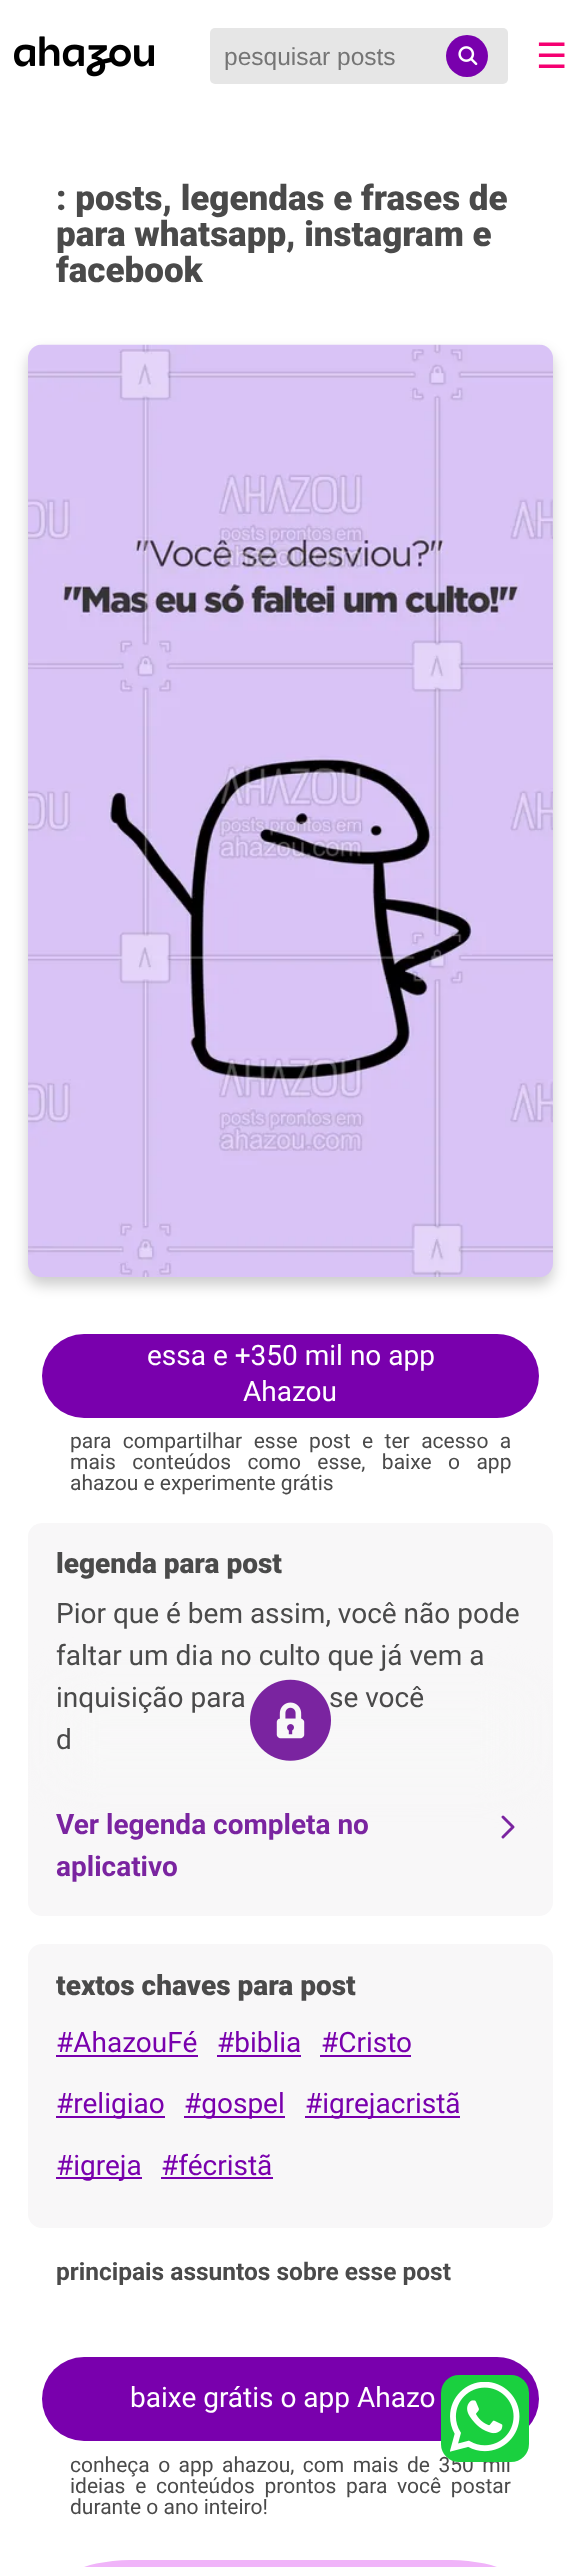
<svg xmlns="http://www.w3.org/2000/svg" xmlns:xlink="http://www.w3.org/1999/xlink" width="580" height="2567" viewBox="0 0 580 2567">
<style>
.cls-1{font:24.5px Liberation Sans;fill:#757575}
.cls-2{font:35px DejaVu Sans;fill:#f50072}
.cls-3{font:900 35px Roboto;fill:#4a4a4a}
.cls-4{font:28px Roboto;fill:#ffffff}
.cls-5{font:21px Roboto;fill:#4a4a4a}
.cls-6{font:900 28px Roboto;fill:#4a4a4a}
.cls-7{font:28px Roboto;fill:#4a4a4a}
.cls-8{font:bold 28px Roboto;fill:#7a24a0}
.cls-9{font:28px Roboto;fill:#7900ad}
.cls-10{font:bold 24.5px Roboto;fill:#4a4a4a}
</style>
<defs>
<clipPath id="clip1"><rect x="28" y="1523" width="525" height="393" rx="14"/></clipPath>
<clipPath id="clip2"><rect x="224" y="42" width="228" height="28"/></clipPath>
</defs>
<rect width="100%" height="100%" fill="#ffffff"/>
<image xlink:href="image0.png" x="14" y="36" width="140" height="41"/>
<rect fill="#e6e6e6" x="210" y="28" width="298" height="56" rx="5"/>
<circle fill="#7900ad" cx="467" cy="56" r="21"/>
<image xlink:href="image1.png" x="458" y="46" width="20" height="20"/>
<rect fill="#000000" fill-opacity="0.2" filter="blur(7px)" x="28" y="352" width="525" height="933" rx="14"/>
<image xlink:href="image2.png" x="28" y="344" width="525" height="933"/>
<rect fill="#7900ad" x="42" y="1334" width="497" height="84" rx="42"/>
<rect fill="#f8f7f8" x="28" y="1523" width="525" height="393" rx="14"/>
<g clip-path="url(#clip1)">
<rect fill="#f8f7f8" fill-opacity="0.93" filter="blur(23px)" x="56" y="1691" width="469" height="87"/>
</g>
<path fill="none" stroke="#7a24a0" stroke-width="2.9" stroke-linecap="round" stroke-linejoin="round" d="M503 1817L513 1827L503 1837"/>
<rect fill="#f8f7f8" x="28" y="1944" width="525" height="284" rx="14"/>
<rect fill="#7900ad" x="56" y="2055" width="142" height="2"/>
<rect fill="#7900ad" x="217" y="2055" width="84" height="2"/>
<rect fill="#7900ad" x="320" y="2055" width="91" height="2"/>
<rect fill="#7900ad" x="56" y="2116" width="109" height="2"/>
<rect fill="#7900ad" x="184" y="2116" width="101" height="2"/>
<rect fill="#7900ad" x="305" y="2116" width="155" height="2"/>
<rect fill="#7900ad" x="56" y="2177" width="86" height="2"/>
<rect fill="#7900ad" x="161" y="2177" width="112" height="2"/>
<rect fill="#7900ad" x="42" y="2357" width="497" height="84" rx="42"/>
<rect fill="#f0b4f9" x="42" y="2560" width="497" height="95" rx="88"/>
<g clip-path="url(#clip2)">
<text class="cls-1" x="224" y="65">pesquisar posts</text>
</g>
<text class="cls-2" x="536" y="68">☰</text>
<text class="cls-3"><tspan x="56" y="210">: posts, legendas e frases de</tspan><tspan x="56" y="246">para whatsapp, instagram e</tspan><tspan x="56" y="282">facebook</tspan></text>
<text class="cls-4" x="147" y="1365">essa e +350 mil no app</text>
<text class="cls-4" x="243" y="1401">Ahazou</text>
<text class="cls-5"><tspan x="70" y="1448" word-spacing="6.25">para compartilhar esse post e ter acesso a</tspan><tspan x="70" y="1469" word-spacing="11.25">mais conteúdos como esse, baixe o app</tspan><tspan x="70" y="1490">ahazou e experimente grátis</tspan></text>
<text class="cls-6" x="56" y="1573">legenda para post</text>
<text class="cls-7"><tspan x="56" y="1623">Pior que é bem assim, você não pode</tspan><tspan x="56" y="1665">faltar um dia no culto que já vem a</tspan><tspan x="56" y="1707">inquisição para</tspan></text>
<text class="cls-7" x="329" y="1707">se você</text>
<text class="cls-7" x="56" y="1749">d</text>
<image xlink:href="image3.png" x="250" y="1679" width="81" height="82"/>
<text class="cls-8"><tspan x="56" y="1834">Ver legenda completa no</tspan><tspan x="56" y="1876">aplicativo</tspan></text>
<text class="cls-6" x="56" y="1995">textos chaves para post</text>
<text class="cls-9" x="56" y="2052">#AhazouFé</text>
<text class="cls-9" x="217" y="2052">#biblia</text>
<text class="cls-9" x="321" y="2052">#Cristo</text>
<text class="cls-9" x="56" y="2113">#religiao</text>
<text class="cls-9" x="184" y="2113">#gospel</text>
<text class="cls-9" x="305" y="2113">#igrejacristã</text>
<text class="cls-9" x="56" y="2175">#igreja</text>
<text class="cls-9" x="161" y="2175">#fécristã</text>
<text class="cls-10" x="56" y="2280">principais assuntos sobre esse post</text>
<text class="cls-4" x="130" y="2407">baixe grátis o app Ahazo</text>
<text class="cls-5"><tspan x="70" y="2472" word-spacing="3.25">conheça o app ahazou, com mais de 350 mil</tspan><tspan x="70" y="2493" word-spacing="4.5">ideias e conteúdos prontos para você postar</tspan><tspan x="70" y="2514">durante o ano inteiro!</tspan></text>
<rect fill="#1ad03f" x="441" y="2375" width="88" height="87" rx="18"/>
<image xlink:href="image4.png" x="450" y="2382" width="70" height="70"/>
</svg>
